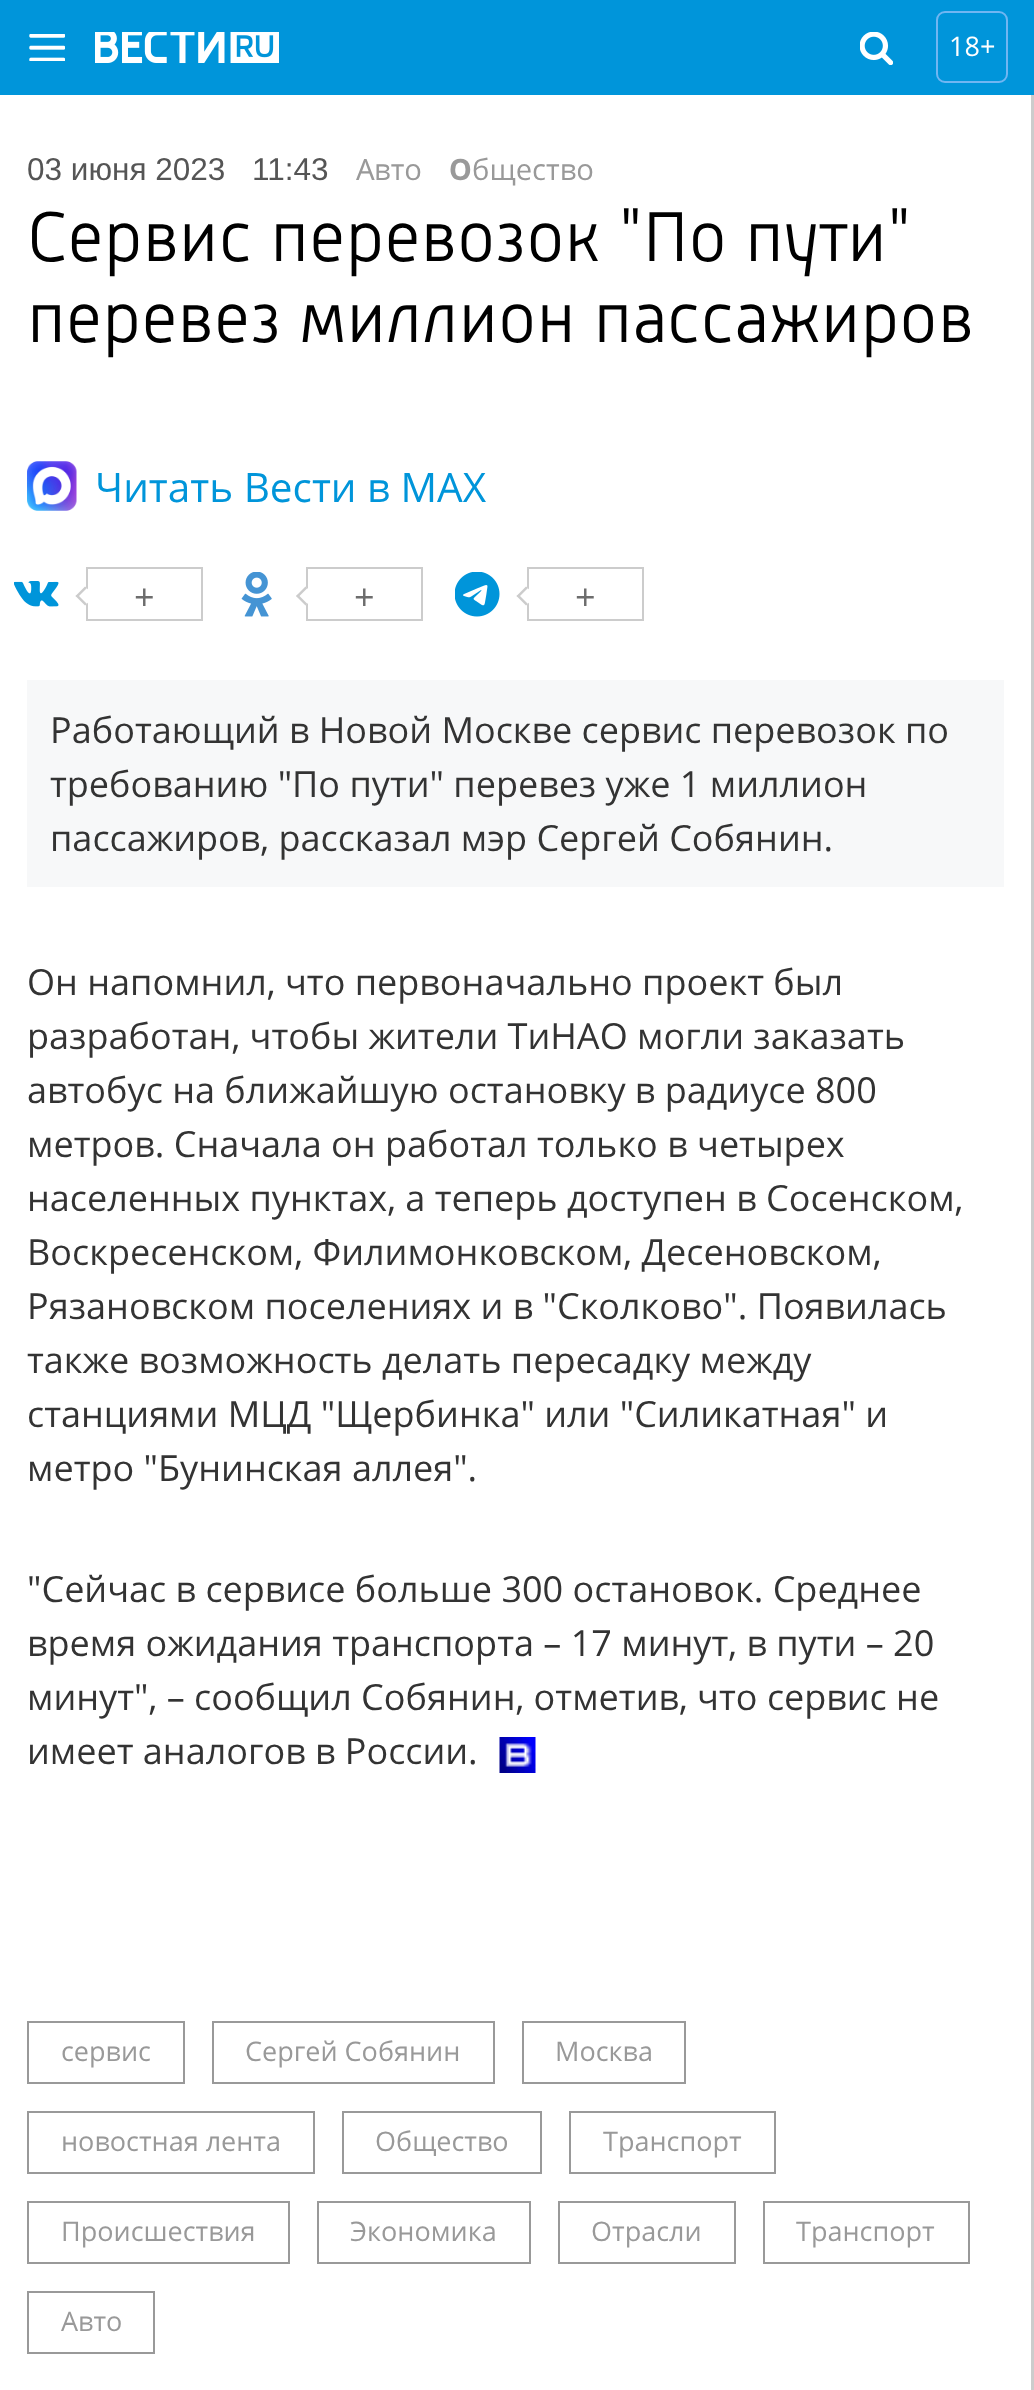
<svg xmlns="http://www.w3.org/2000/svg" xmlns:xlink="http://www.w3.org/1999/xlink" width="1034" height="2390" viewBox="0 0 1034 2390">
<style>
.cls-1{font:27px Open Sans;fill:#ffffff}
.cls-2{font:31.5px Arimo;fill:#555555}
.cls-3{font:29.25px Noto Sans;fill:#999999}
.cls-4{font:29.25px Open Sans;fill:#999999}
.cls-5{font:bold 29.25px Noto Sans;fill:#999999}
.cls-6{font:300 72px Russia;fill:#000000}
.cls-7{font:40.5px Open Sans;fill:#0095da}
.cls-8{font:36px Open Sans;fill:#6d6d6d}
.cls-9{font:36px Open Sans;fill:#333333}
.cls-10{font:27px Open Sans;fill:#999999}
</style>
<rect width="100%" height="100%" fill="#ffffff"/>
<rect fill="#0095da" x="0" y="0" width="1034" height="95"/>
<image xlink:href="image0.png" x="29" y="34" width="36" height="27"/>
<image xlink:href="image1.png" x="95" y="32" width="184" height="32"/>
<image xlink:href="image2.png" x="860" y="32" width="33" height="33"/>
<rect fill="none" stroke="#70b6f2" stroke-width="2" x="937" y="12" width="70" height="70" rx="8"/>
<rect fill="#cccccc" x="1031" y="95" width="3" height="2295"/>
<image xlink:href="image3.png" x="27" y="461" width="50" height="50"/>
<image xlink:href="image4.png" x="14" y="581" width="45" height="26"/>
<rect fill="none" stroke="#cccccc" stroke-width="2" x="87" y="568" width="115" height="52"/>
<path fill="#ffffff" d="M75.5 596L85 586.5L95 596L85 605.5Z"/>
<path fill="#cccccc" d="M75.5 596L85 586.5L87 588L77.5 597.5Z"/>
<path fill="#cccccc" d="M75.5 596L77.5 594.5L87 604L85 605.5Z"/>
<image xlink:href="image5.png" x="241" y="572" width="31" height="45"/>
<rect fill="none" stroke="#cccccc" stroke-width="2" x="307" y="568" width="115" height="52"/>
<path fill="#ffffff" d="M296 596L305.5 586.5L315.5 596L305.5 605.5Z"/>
<path fill="#cccccc" d="M296 596L305.5 586.5L307.5 588L298 597.5Z"/>
<path fill="#cccccc" d="M296 596L298 594.5L307.5 604L305.5 605.5Z"/>
<image xlink:href="image6.png" x="455" y="572" width="45" height="45"/>
<rect fill="none" stroke="#cccccc" stroke-width="2" x="528" y="568" width="115" height="52"/>
<path fill="#ffffff" d="M516.5 596L526 586.5L536 596L526 605.5Z"/>
<path fill="#cccccc" d="M516.5 596L526 586.5L528 588L518.5 597.5Z"/>
<path fill="#cccccc" d="M516.5 596L518.5 594.5L528 604L526 605.5Z"/>
<rect fill="#f7f8f9" x="27" y="680" width="977" height="207"/>
<image xlink:href="image7.png" x="499" y="1737" width="37" height="36"/>
<rect fill="none" stroke="#999999" stroke-width="2" x="28" y="2022" width="156" height="61"/>
<rect fill="none" stroke="#999999" stroke-width="2" x="213" y="2022" width="281" height="61"/>
<rect fill="none" stroke="#999999" stroke-width="2" x="523" y="2022" width="162" height="61"/>
<rect fill="none" stroke="#999999" stroke-width="2" x="28" y="2112" width="286" height="61"/>
<rect fill="none" stroke="#999999" stroke-width="2" x="343" y="2112" width="198" height="61"/>
<rect fill="none" stroke="#999999" stroke-width="2" x="570" y="2112" width="205" height="61"/>
<rect fill="none" stroke="#999999" stroke-width="2" x="28" y="2202" width="261" height="61"/>
<rect fill="none" stroke="#999999" stroke-width="2" x="318" y="2202" width="212" height="61"/>
<rect fill="none" stroke="#999999" stroke-width="2" x="559" y="2202" width="176" height="61"/>
<rect fill="none" stroke="#999999" stroke-width="2" x="764" y="2202" width="205" height="61"/>
<rect fill="none" stroke="#999999" stroke-width="2" x="28" y="2292" width="126" height="61"/>
<text class="cls-1" x="949" y="56">18+</text>
<text class="cls-2" x="27" y="180">03 июня 2023</text>
<text class="cls-2" x="252" y="180">11:43</text>
<text class="cls-3" x="356" y="180">А</text>
<text class="cls-4" x="374" y="180">вто</text>
<text class="cls-5" x="449" y="180">О</text>
<text class="cls-4" x="472" y="180">бщество</text>
<text class="cls-6"><tspan x="27" y="261">Сервис перевозок "По пути"</tspan><tspan x="27" y="342">перевез миллион пассажиров</tspan></text>
<text class="cls-7" x="95" y="502">Читать Вести в MAX</text>
<text class="cls-8" x="134" y="610">+</text>
<text class="cls-8" x="354" y="610">+</text>
<text class="cls-8" x="575" y="610">+</text>
<text class="cls-9"><tspan x="50" y="743">Работающий в Новой Москве сервис перевозок по</tspan><tspan x="50" y="797">требованию "По пути" перевез уже 1 миллион</tspan><tspan x="50" y="851">пассажиров, рассказал мэр Сергей Собянин.</tspan></text>
<text class="cls-9"><tspan x="27" y="995">Он напомнил, что первоначально проект был</tspan><tspan x="27" y="1049">разработан, чтобы жители ТиНАО могли заказать</tspan><tspan x="27" y="1103">автобус на ближайшую остановку в радиусе 800</tspan><tspan x="27" y="1157">метров. Сначала он работал только в четырех</tspan><tspan x="27" y="1211">населенных пунктах, а теперь доступен в Сосенском,</tspan><tspan x="27" y="1265">Воскресенском, Филимонковском, Десeновском,</tspan><tspan x="27" y="1319">Рязановском поселениях и в "Сколково". Появилась</tspan><tspan x="27" y="1373">также возможность делать пересадку между</tspan><tspan x="27" y="1427">станциями МЦД "Щербинка" или "Силикатная" и</tspan><tspan x="27" y="1481">метро "Бунинская аллея".</tspan></text>
<text class="cls-9"><tspan x="27" y="1602">"Сейчас в сервисе больше 300 остановок. Среднее</tspan><tspan x="27" y="1656">время ожидания транспорта – 17 минут, в пути – 20</tspan><tspan x="27" y="1710">минут", – сообщил Собянин, отметив, что сервис не</tspan><tspan x="27" y="1764">имеет аналогов в России.</tspan></text>
<text class="cls-10" x="61" y="2061">сервис</text>
<text class="cls-10" x="245" y="2061">Сергей Собянин</text>
<text class="cls-10" x="555" y="2061">Москва</text>
<text class="cls-10" x="61" y="2151">новостная лента</text>
<text class="cls-10" x="375" y="2151">Общество</text>
<text class="cls-10" x="603" y="2151">Транспорт</text>
<text class="cls-10" x="61" y="2241">Происшествия</text>
<text class="cls-10" x="350" y="2241">Экономика</text>
<text class="cls-10" x="591" y="2241">Отрасли</text>
<text class="cls-10" x="796" y="2241">Транспорт</text>
<text class="cls-10" x="61" y="2331">Авто</text>
</svg>
